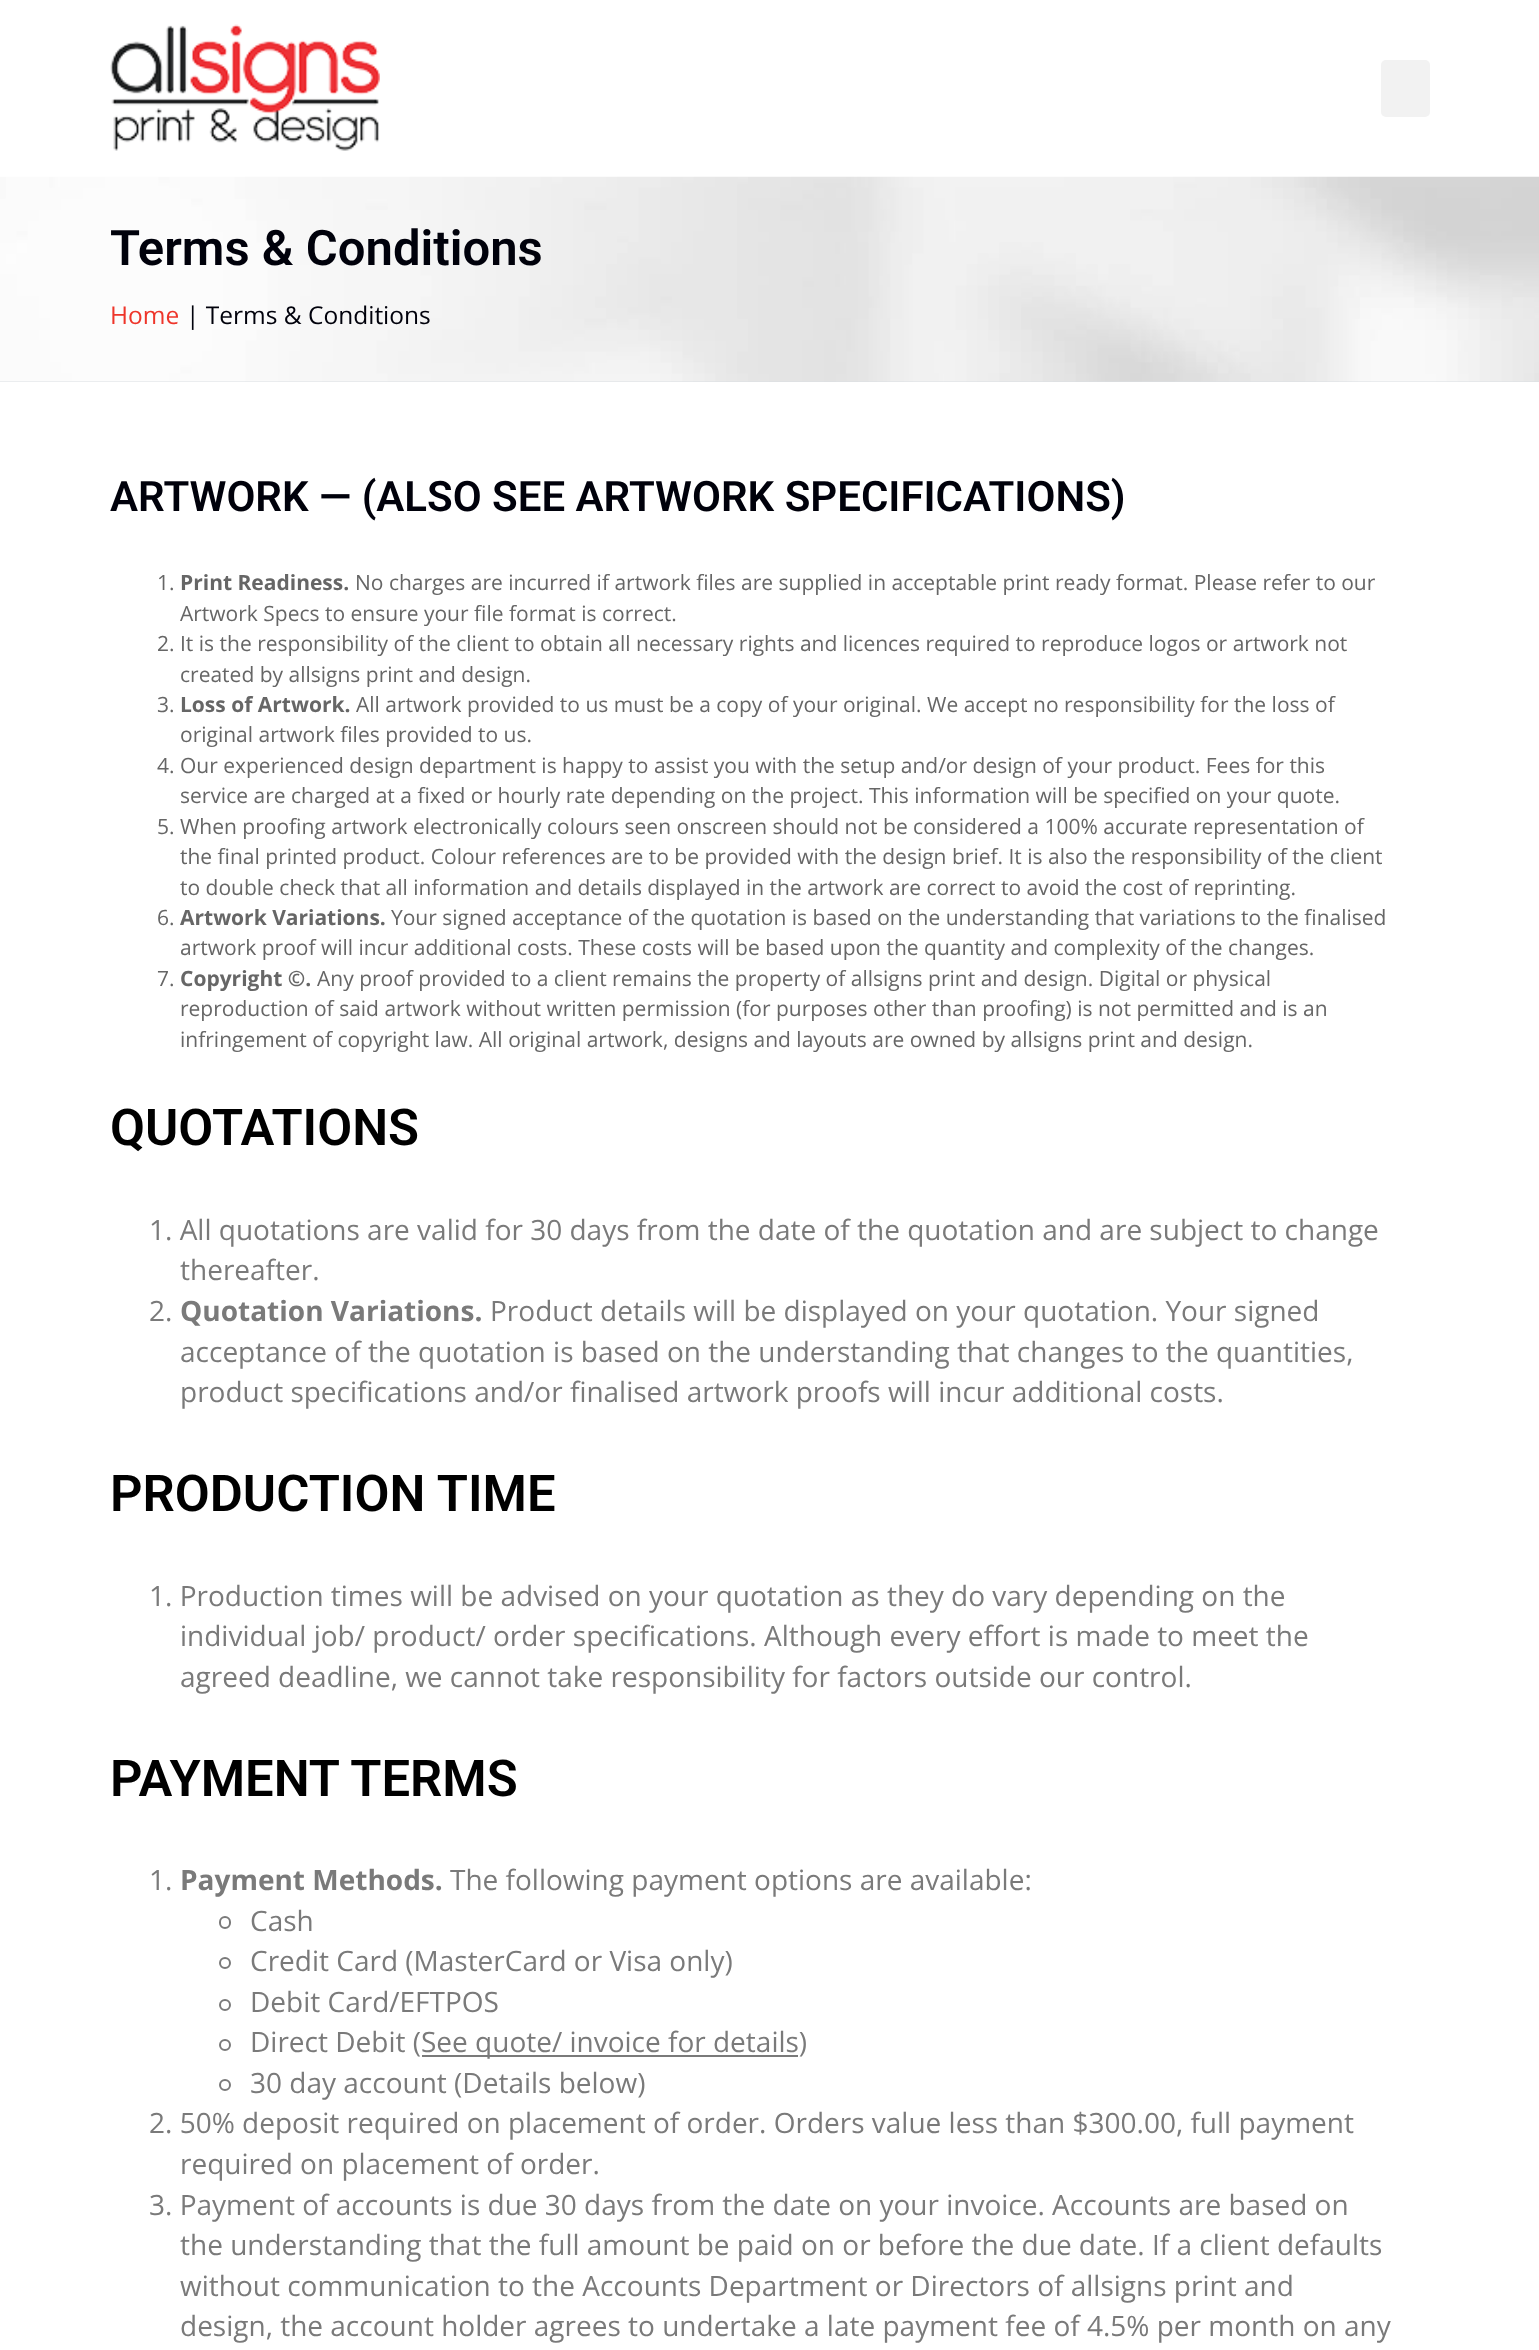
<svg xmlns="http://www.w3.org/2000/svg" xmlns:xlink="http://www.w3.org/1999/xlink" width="1539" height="2350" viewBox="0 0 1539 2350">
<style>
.cls-1{font:600 49px Roboto;fill:#00010b}
.cls-2{font:24.5px Open Sans;fill:#ee352a}
.cls-3{font:24.5px Open Sans;fill:#00010b}
.cls-4{font:600 42px Roboto;fill:#00010b}
.cls-5{font:21px Open Sans;fill:#666666}
.cls-6{font:bold 21px Open Sans;fill:#666666}
.cls-7{font:600 50.75px Roboto;fill:#000000}
.cls-8{font:28px Open Sans;fill:#7a7a7a}
.cls-9{font:bold 28px Open Sans;fill:#7a7a7a}
</style>
<rect width="100%" height="100%" fill="#dadfe2"/>
<rect fill="#ffffff" x="0" y="0" width="1539" height="177"/>
<image xlink:href="image0.png" x="110" y="24" width="270" height="127"/>
<rect fill="#f2f2f2" x="1381" y="60" width="49" height="57" rx="5"/>
<image xlink:href="image1.png" x="0" y="176" width="1539" height="206"/>
<rect fill="#ffffff" x="0" y="382" width="1539" height="1968"/>
<rect fill="none" stroke="#7a7a7a" stroke-width="2" x="220" y="1917" width="10" height="11" rx="5"/>
<circle fill="none" stroke="#7a7a7a" stroke-width="2" cx="225" cy="1963" r="5"/>
<circle fill="none" stroke="#7a7a7a" stroke-width="2" cx="225" cy="2005" r="5"/>
<circle fill="none" stroke="#7a7a7a" stroke-width="2" cx="225" cy="2045" r="5"/>
<rect fill="#7a7a7a" x="422" y="2055" width="376" height="2"/>
<circle fill="none" stroke="#7a7a7a" stroke-width="2" cx="225" cy="2085" r="5"/>
<text class="cls-1" x="110" y="265">Terms &amp; Conditions</text>
<text class="cls-2" x="110" y="324">Home</text>
<text class="cls-3" x="186" y="324">| Terms &amp; Conditions</text>
<text class="cls-4" x="110" y="511">ARTWORK — (ALSO SEE ARTWORK SPECIFICATIONS)</text>
<text class="cls-5" x="157" y="590">1.</text>
<text class="cls-6" x="180" y="590">Print Readiness.</text>
<text class="cls-5" x="355" y="590">No charges are incurred if artwork files are supplied in acceptable print ready format. Please refer to our</text>
<text class="cls-5" x="180" y="621">Artwork Specs to ensure your file format is correct.</text>
<text class="cls-5" x="157" y="651">2. It is the responsibility of the client to obtain all necessary rights and licences required to reproduce logos or artwork not</text>
<text class="cls-5" x="180" y="682">created by allsigns print and design.</text>
<text class="cls-5" x="157" y="712">3.</text>
<text class="cls-6" x="180" y="712">Loss of Artwork.</text>
<text class="cls-5" x="356" y="712">All artwork provided to us must be a copy of your original. We accept no responsibility for the loss of</text>
<text class="cls-5" x="180" y="742">original artwork files provided to us.</text>
<text class="cls-5" x="157" y="773">4. Our experienced design department is happy to assist you with the setup and/or design of your product. Fees for this</text>
<text class="cls-5" x="180" y="803">service are charged at a fixed or hourly rate depending on the project. This information will be specified on your quote.</text>
<text class="cls-5" x="157" y="834">5. When proofing artwork electronically colours seen onscreen should not be considered a 100% accurate representation of</text>
<text class="cls-5"><tspan x="180" y="864">the final printed product. Colour references are to be provided with the design brief. It is also the responsibility of the client</tspan><tspan x="180" y="895">to double check that all information and details displayed in the artwork are correct to avoid the cost of reprinting.</tspan></text>
<text class="cls-5" x="157" y="925">6.</text>
<text class="cls-6" x="180" y="925">Artwork Variations.</text>
<text class="cls-5" x="391" y="925">Your signed acceptance of the quotation is based on the understanding that variations to the finalised</text>
<text class="cls-5" x="180" y="955">artwork proof will incur additional costs. These costs will be based upon the quantity and complexity of the changes.</text>
<text class="cls-5" x="157" y="986">7.</text>
<text class="cls-6" x="180" y="986">Copyright ©.</text>
<text class="cls-5" x="317" y="986">Any proof provided to a client remains the property of allsigns print and design. Digital or physical</text>
<text class="cls-5"><tspan x="180" y="1016">reproduction of said artwork without written permission (for purposes other than proofing) is not permitted and is an</tspan><tspan x="180" y="1047">infringement of copyright law. All original artwork, designs and layouts are owned by allsigns print and design.</tspan></text>
<text class="cls-7" x="110" y="1145">QUOTATIONS</text>
<text class="cls-8" x="149" y="1240">1. All quotations are valid for 30 days from the date of the quotation and are subject to change</text>
<text class="cls-8" x="180" y="1280">thereafter.</text>
<text class="cls-8" x="149" y="1321">2.</text>
<text class="cls-9" x="180" y="1321">Quotation Variations.</text>
<text class="cls-8" x="490" y="1321">Product details will be displayed on your quotation. Your signed</text>
<text class="cls-8"><tspan x="180" y="1362">acceptance of the quotation is based on the understanding that changes to the quantities,</tspan><tspan x="180" y="1402">product specifications and/or finalised artwork proofs will incur additional costs.</tspan></text>
<text class="cls-7" x="110" y="1511">PRODUCTION TIME</text>
<text class="cls-8" x="149" y="1606">1. Production times will be advised on your quotation as they do vary depending on the</text>
<text class="cls-8"><tspan x="180" y="1646">individual job/ product/ order specifications. Although every effort is made to meet the</tspan><tspan x="180" y="1687">agreed deadline, we cannot take responsibility for factors outside our control.</tspan></text>
<text class="cls-7" x="110" y="1796">PAYMENT TERMS</text>
<text class="cls-8" x="149" y="1890">1.</text>
<text class="cls-9" x="180" y="1890">Payment Methods.</text>
<text class="cls-8" x="450" y="1890">The following payment options are available:</text>
<text class="cls-8"><tspan x="250" y="1931">Cash</tspan><tspan x="250" y="1971">Credit Card (MasterCard or Visa only)</tspan><tspan x="250" y="2012">Debit Card/EFTPOS</tspan><tspan x="250" y="2052">Direct Debit (</tspan></text>
<text class="cls-8" x="421" y="2052">See quote/ invoice for details)</text>
<text class="cls-8" x="250" y="2093">30 day account (Details below)</text>
<text class="cls-8" x="149" y="2133">2. 50% deposit required on placement of order. Orders value less than $300.00, full payment</text>
<text class="cls-8" x="180" y="2174">required on placement of order.</text>
<text class="cls-8" x="149" y="2215">3. Payment of accounts is due 30 days from the date on your invoice. Accounts are based on</text>
<text class="cls-8"><tspan x="180" y="2255">the understanding that the full amount be paid on or before the due date. If a client defaults</tspan><tspan x="180" y="2296">without communication to the Accounts Department or Directors of allsigns print and</tspan><tspan x="180" y="2336">design, the account holder agrees to undertake a late payment fee of 4.5% per month on any</tspan></text>
</svg>
